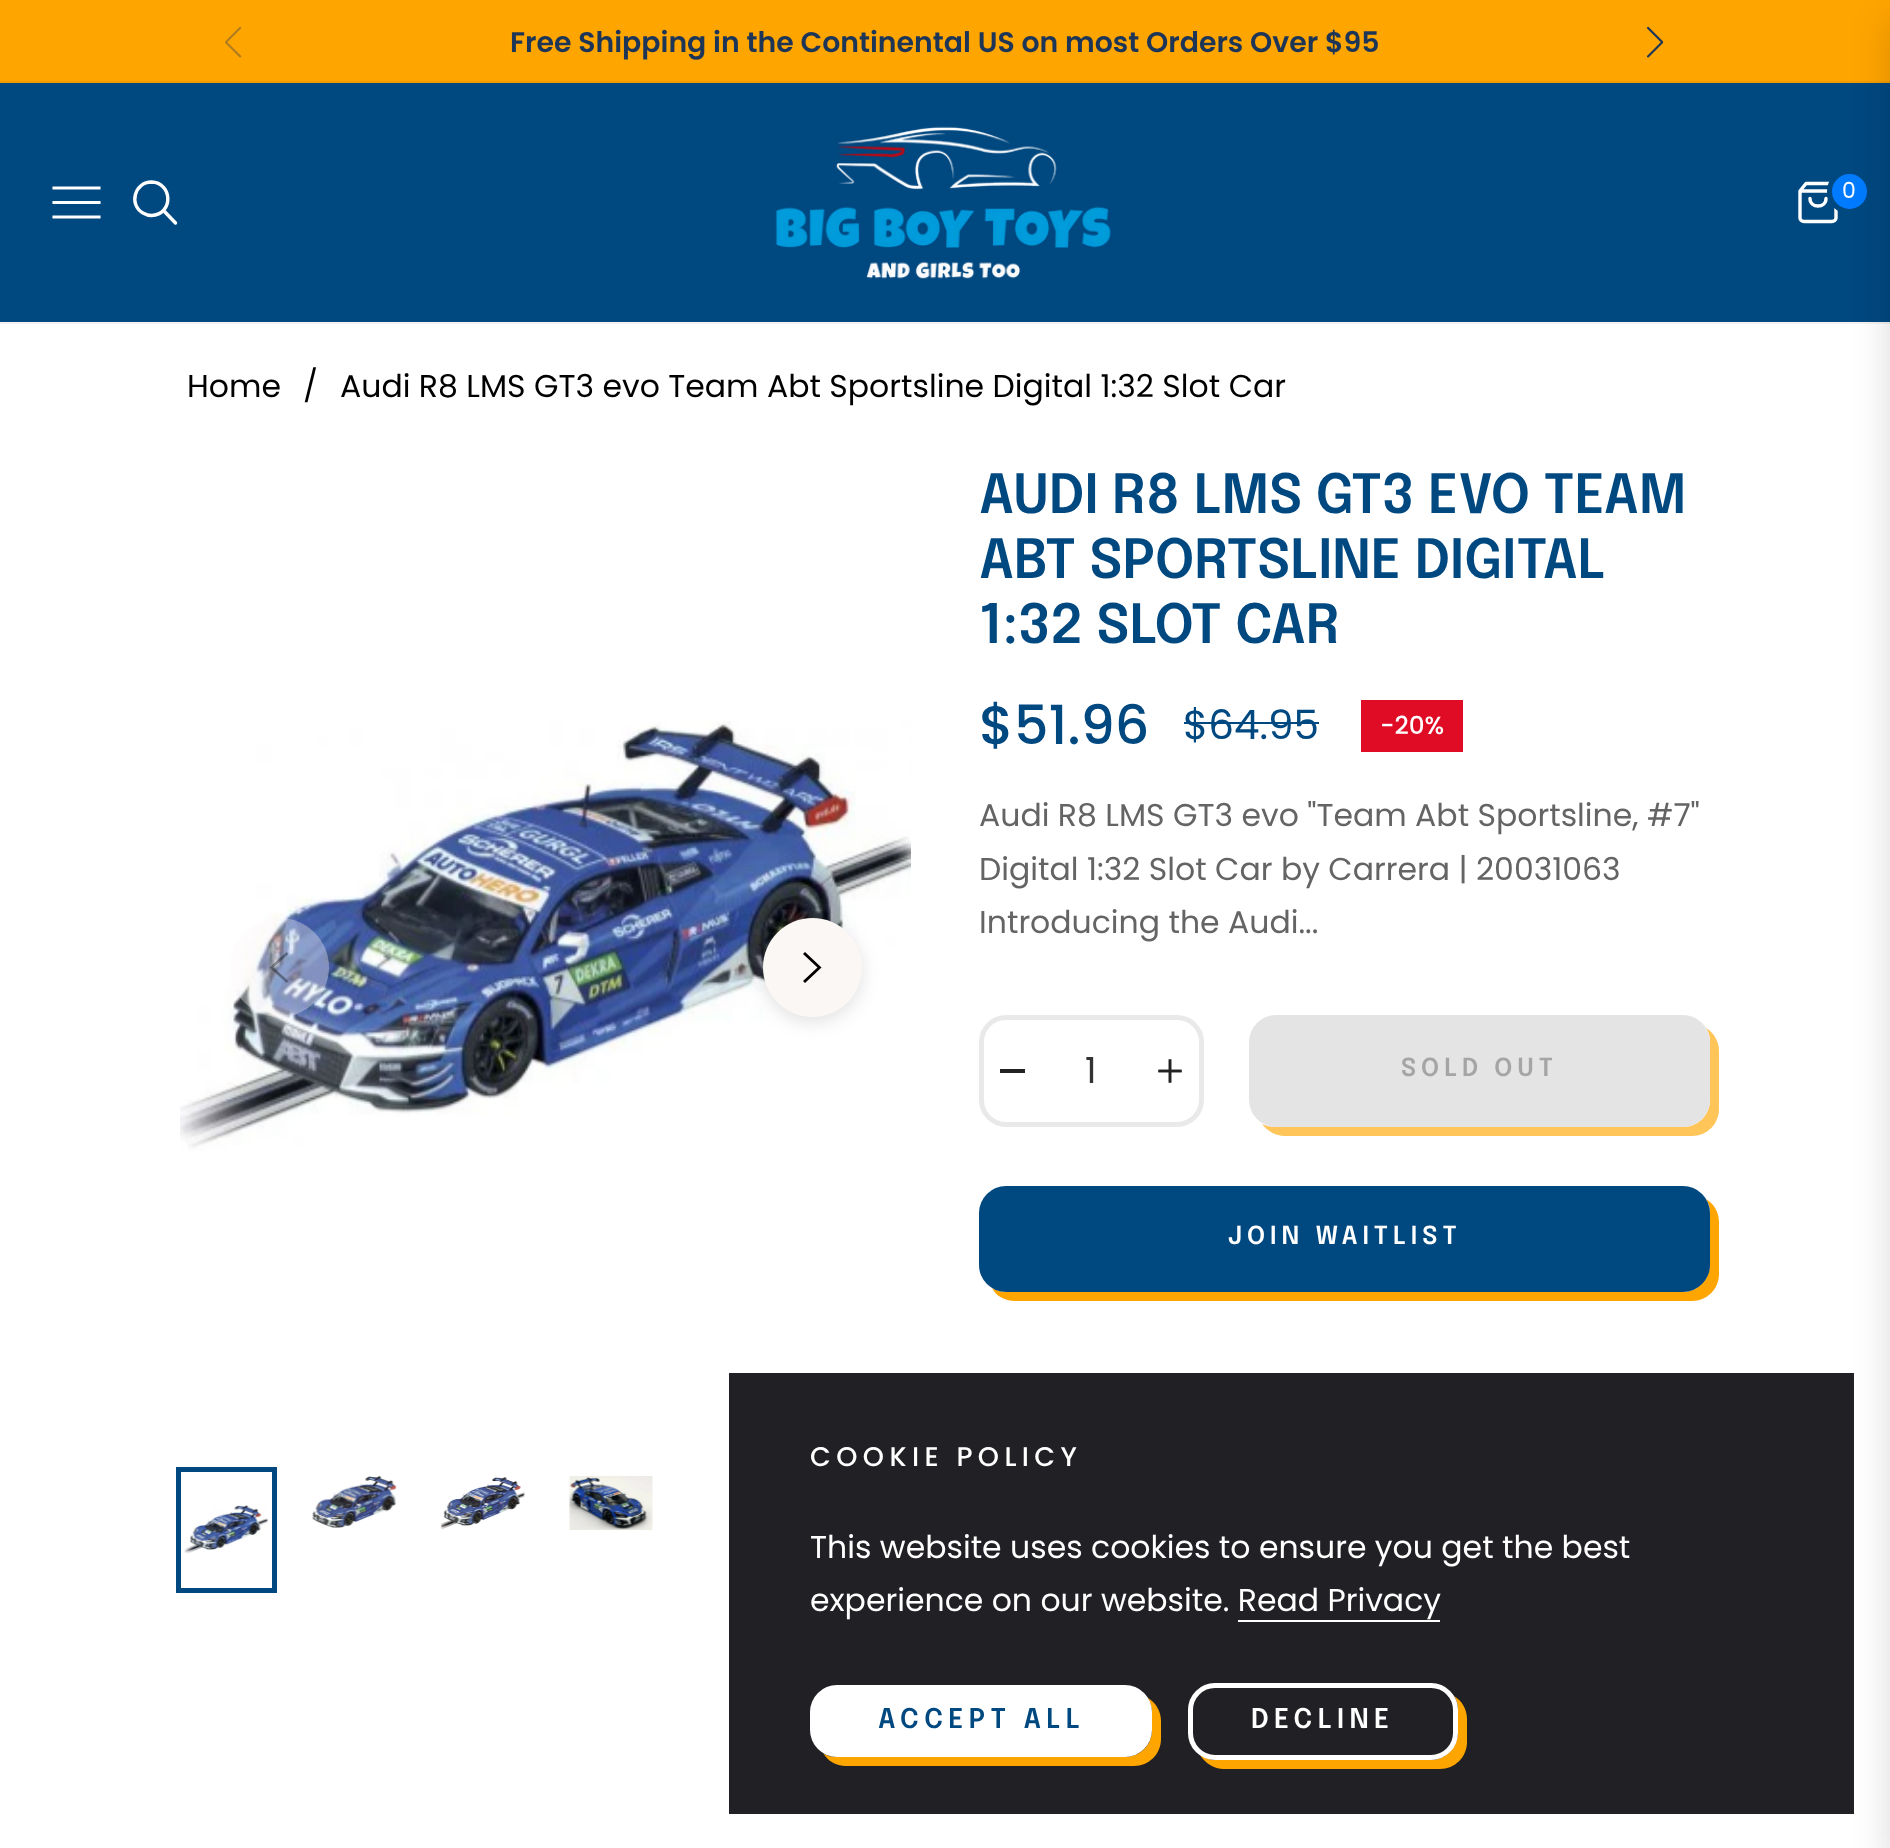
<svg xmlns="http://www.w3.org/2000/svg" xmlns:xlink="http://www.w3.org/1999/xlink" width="1890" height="1848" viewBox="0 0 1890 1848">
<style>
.cls-1{font:600 28.35px Poppins;fill:#1d3557}
.cls-2{font:22px Poppins;fill:#ffffff}
.cls-3{font:31.5px Poppins;fill:#000000}
.cls-4{font:600 54px Epilogue;fill:#004880}
.cls-5{font:500 54px Poppins;fill:#004880}
.cls-6{font:40.5px Poppins;fill:#004880}
.cls-7{font:500 24.75px Poppins;fill:#ffffff}
.cls-8{font:31.5px Poppins;fill:#646464}
.cls-9{font:36px Poppins;fill:#333333}
.cls-10{font:600 24.75px Epilogue;letter-spacing:5px;fill:#a5a5a5}
.cls-11{font:600 24.75px Epilogue;letter-spacing:5px;fill:#ffffff}
.cls-12{font:500 27px Poppins;letter-spacing:5.4px;fill:#ffffff}
.cls-13{font:31.5px Poppins;fill:#ffffff}
.cls-14{font:600 27px Epilogue;letter-spacing:5.4px;fill:#004880}
.cls-15{font:600 27px Epilogue;letter-spacing:5.4px;fill:#ffffff}
</style>
<rect width="100%" height="100%" fill="#ffffff"/>
<rect fill="#ffa500" x="0" y="0" width="1890" height="83"/>
<image xlink:href="image0.png" x="225" y="26" width="17" height="32"/>
<image xlink:href="image1.png" x="1646" y="26" width="18" height="32"/>
<rect fill="none" stroke="#000000" stroke-opacity="0.05" stroke-width="2" x="-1" y="82" width="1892" height="241"/>
<rect fill="#004880" x="0" y="83" width="1890" height="239"/>
<path fill="none" stroke="#ffffff" stroke-width="3.1" stroke-linecap="square" d="M54 217H99M54 202.5H99M54 188H99"/>
<path fill="none" stroke="#ffffff" stroke-width="3.4" d="M151.5 182C134.5 182 128.5 205 143 213C145.5 214.5 148.5 215.5 151.5 215.5C174 214.5 172.5 182.5 151.5 182Z"/>
<path fill="none" stroke="#ffffff" stroke-width="3.4" stroke-linecap="round" d="M164 211L175.5 223"/>
<image xlink:href="image2.png" x="775" y="126" width="336" height="153"/>
<path fill="none" stroke="#ffffff" stroke-width="3.4" stroke-linecap="round" stroke-linejoin="round" d="M1800 191L1806 183.5H1830L1836 191M1800 191V218C1800 220 1802 221.5 1804 221.5H1832C1834 221.5 1836 220 1836 218V191M1800 191H1836M1826 198.5C1826 208.5 1810 208.5 1810 198.5"/>
<circle fill="#007bff" stroke="#004880" stroke-width="5" cx="1849.5" cy="191.5" r="20"/>
<rect fill="#000000" fill-opacity="0.15" filter="blur(18px)" x="1890" y="18" width="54" height="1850"/>
<image xlink:href="image3.png" x="180" y="721" width="731" height="430"/>
<circle fill="#fbf7f5" fill-opacity="0.35" cx="279.5" cy="967.5" r="49.5"/>
<path fill="#000000" fill-opacity="0.35" d="M288.5 981L286.5 983L269.5 967.5L286.5 952L288.5 954L273.5 967.5Z"/>
<rect fill="#363636" fill-opacity="0.15" filter="blur(9px)" x="763" y="923" width="99" height="99" rx="49.5"/>
<circle fill="#fbf7f5" cx="812.5" cy="967.5" r="49.5"/>
<path fill="#000000" d="M803 954L805 952L821.5 967.5L805 983L803 981L817.5 967.5Z"/>
<rect fill="none" stroke="#004880" stroke-width="5" x="178.5" y="1469.5" width="96" height="121"/>
<image xlink:href="image4.png" x="184" y="1505" width="84" height="49"/>
<image xlink:href="image5.png" x="312" y="1476" width="85" height="52"/>
<image xlink:href="image6.png" x="440" y="1477" width="85" height="52"/>
<image xlink:href="image7.png" x="569" y="1476" width="84" height="54"/>
<rect fill="#004880" x="1184" y="722" width="135" height="2"/>
<rect fill="#e00b25" x="1361" y="700" width="102" height="52"/>
<rect fill="none" stroke="#e9e9e9" stroke-width="5" x="981.5" y="1017.5" width="220" height="107" rx="24.5"/>
<rect fill="#222222" x="1000" y="1069" width="25" height="4"/>
<image xlink:href="image8.png" x="1158" y="1059" width="24" height="24"/>
<path fill="#ffc559" d="M1262 1124C1267 1131 1276 1136 1285 1136H1692C1707 1136 1719 1124 1719 1109V1051C1719 1041 1714 1033 1706 1028C1709 1032 1710 1037 1710 1042V1100C1710 1115 1698 1127 1683 1127H1276C1271 1127 1266 1126 1262 1124Z"/>
<rect fill="#e4e4e4" x="1249" y="1015" width="461" height="112" rx="27"/>
<path fill="#ffa500" d="M992 1288C996 1296 1005 1301 1015 1301H1692C1707 1301 1719 1289 1719 1274V1222C1719 1212 1714 1204 1706 1199C1709 1203 1710 1208 1710 1213V1264C1710 1279 1698 1292 1683 1292H1006C1001 1292 996 1290 992 1288Z"/>
<rect fill="#004880" x="979" y="1186" width="731" height="106" rx="27"/>
<rect fill="#202025" x="729" y="1373" width="1125" height="441"/>
<rect fill="#ffffff" x="1238" y="1620" width="202" height="2"/>
<path fill="#ffa500" d="M823 1753C828 1761 836 1766 846 1766H1134C1149 1766 1161 1754 1161 1739V1721C1161 1711 1156 1703 1148 1698C1150 1702 1152 1707 1152 1712V1730C1152 1745 1140 1757 1125 1757H837C832 1757 827 1756 823 1753Z"/>
<rect fill="#ffffff" x="810" y="1685" width="342" height="72" rx="27"/>
<path fill="#ffa500" d="M1200 1755C1205 1763 1214 1769 1224 1769H1440C1455 1769 1467 1757 1467 1742V1719C1467 1709 1462 1701 1454 1696C1457 1700 1458 1705 1458 1710V1732C1458 1747 1446 1760 1431 1760H1215C1210 1760 1205 1758 1200 1755Z"/>
<rect fill="none" stroke="#ffffff" stroke-width="5" x="1190.5" y="1685.5" width="265" height="72" rx="24.5"/>
<text class="cls-1" x="510" y="52">Free Shipping in the Continental US on most Orders Over $95</text>
<text class="cls-2" x="1842" y="198">0</text>
<text class="cls-3" x="187" y="397">Home</text>
<text class="cls-3" x="303" y="397">/</text>
<text class="cls-3" x="340" y="397">Audi R8 LMS GT3 evo Team Abt Sportsline Digital 1:32 Slot Car</text>
<text class="cls-4"><tspan x="979" y="513">AUDI R8 LMS GT3 EVO TEAM</tspan><tspan x="979" y="578">ABT SPORTSLINE DIGITAL</tspan><tspan x="979" y="643">1:32 SLOT CAR</tspan></text>
<text class="cls-5" x="979" y="744">$51.96</text>
<text class="cls-6" x="1183" y="739">$64.95</text>
<text class="cls-7" x="1380" y="734">-20%</text>
<text class="cls-8"><tspan x="979" y="826">Audi R8 LMS GT3 evo "Team Abt Sportsline, #7"</tspan><tspan x="979" y="880">Digital 1:32 Slot Car by Carrera | 20031063</tspan><tspan x="979" y="933">Introducing the Audi...</tspan></text>
<text class="cls-9" x="1085" y="1083">1</text>
<text class="cls-10" x="1401" y="1076">SOLD OUT</text>
<text class="cls-11" x="1228" y="1244">JOIN WAITLIST</text>
<text class="cls-12" x="810" y="1466">COOKIE POLICY</text>
<text class="cls-13"><tspan x="810" y="1558">This website uses cookies to ensure you get the best</tspan><tspan x="810" y="1611">experience on our website. Read Privacy</tspan></text>
<text class="cls-14" x="878" y="1728">ACCEPT ALL</text>
<text class="cls-15" x="1251" y="1728">DECLINE</text>
</svg>
